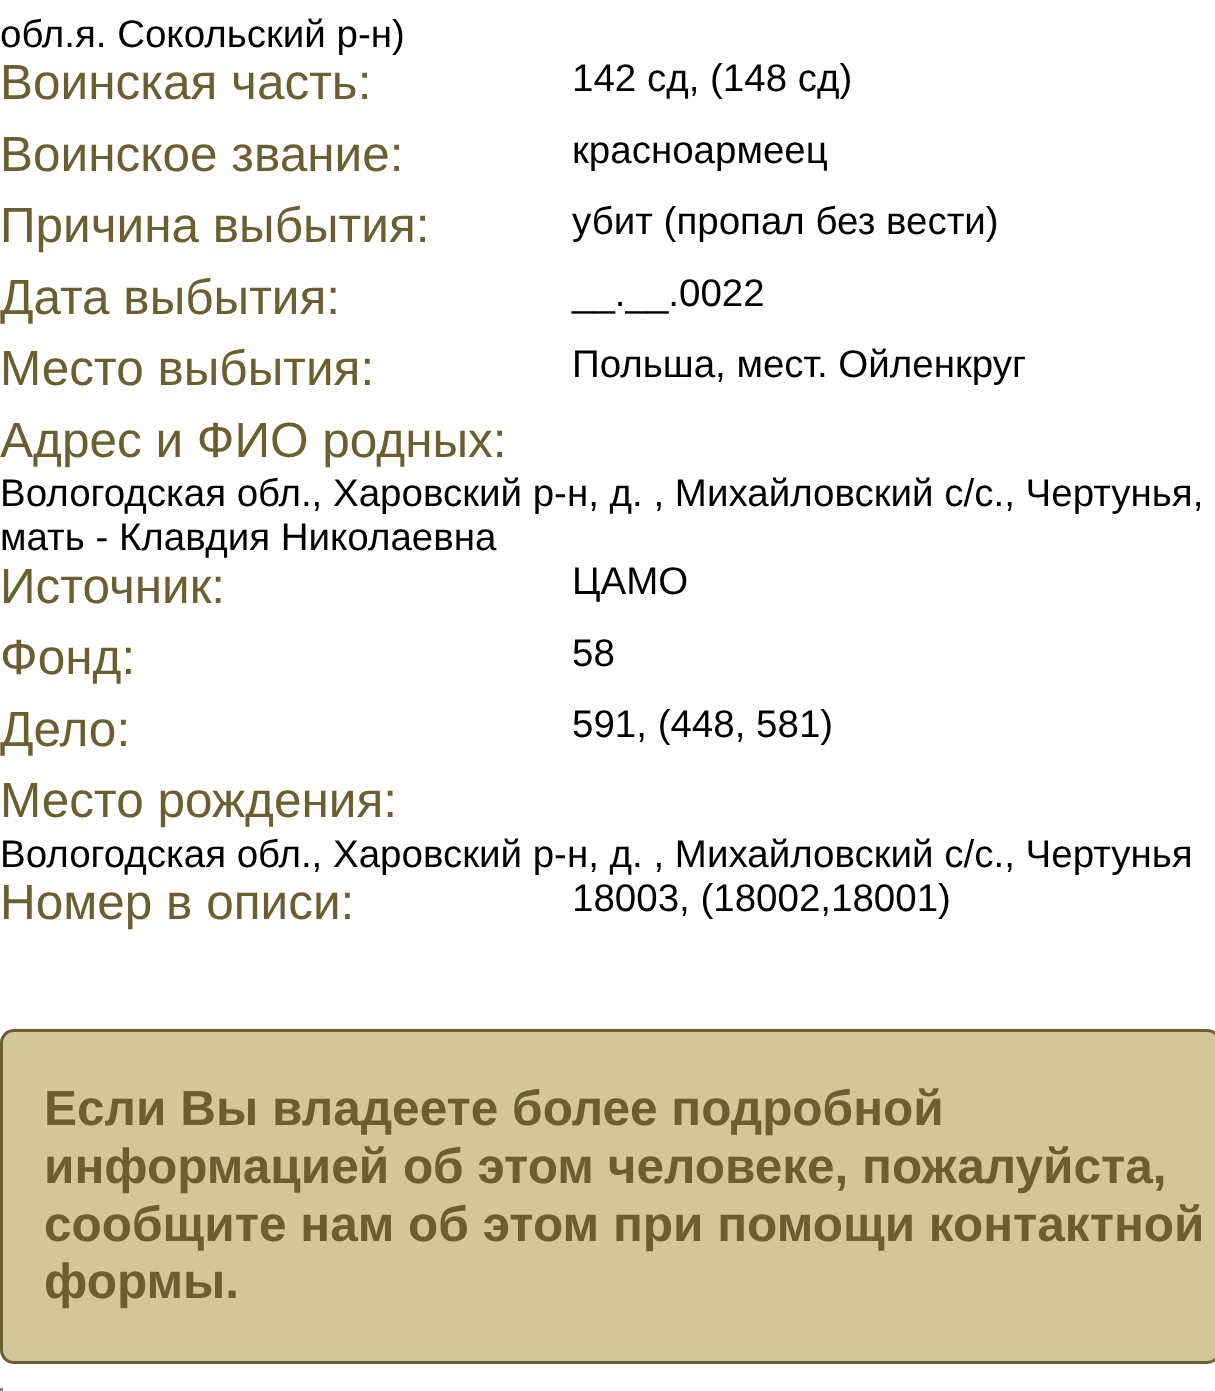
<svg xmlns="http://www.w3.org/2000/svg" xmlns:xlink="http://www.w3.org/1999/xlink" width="1215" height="1391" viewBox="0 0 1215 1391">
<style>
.cls-1{font:38.5px Liberation Sans;fill:#000000}
.cls-2{font:49.5px Liberation Sans;fill:#6a5f31}
.cls-3{font:bold 49.5px Liberation Sans;fill:#6a5f31}
</style>
<rect width="100%" height="100%" fill="#ffffff"/>
<rect fill="#d2c799" stroke="#6a5f31" stroke-width="3" x="1.5" y="1030.5" width="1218" height="332" rx="12.5"/>
<rect fill="#828282" x="0" y="1388" width="3" height="3"/>
<text class="cls-1" x="0" y="47">обл.я. Сокольский р-н)</text>
<text class="cls-2" x="0" y="99">Воинская часть:</text>
<text class="cls-1" x="572" y="91">142 сд, (148 сд)</text>
<text class="cls-2" x="0" y="171">Воинское звание:</text>
<text class="cls-1" x="572" y="163">красноармеец</text>
<text class="cls-2" x="0" y="242">Причина выбытия:</text>
<text class="cls-1" x="572" y="234">убит (пропал без вести)</text>
<text class="cls-2" x="0" y="314">Дата выбытия:</text>
<text class="cls-1" x="572" y="306">__.__.0022</text>
<text class="cls-2" x="0" y="385">Место выбытия:</text>
<text class="cls-1" x="572" y="377">Польша, мест. Ойленкруг</text>
<text class="cls-2" x="0" y="457">Адрес и ФИО родных:</text>
<text class="cls-1"><tspan x="0" y="506">Вологодская обл., Харовский р-н, д. , Михайловский с/с., Чертунья,</tspan><tspan x="0" y="550">мать - Клавдия Николаевна</tspan></text>
<text class="cls-2" x="0" y="603">Источник:</text>
<text class="cls-1" x="572" y="594">ЦАМО</text>
<text class="cls-2" x="0" y="674">Фонд:</text>
<text class="cls-1" x="572" y="666">58</text>
<text class="cls-2" x="0" y="746">Дело:</text>
<text class="cls-1" x="572" y="737">591, (448, 581)</text>
<text class="cls-2" x="0" y="817">Место рождения:</text>
<text class="cls-1" x="0" y="867">Вологодская обл., Харовский р-н, д. , Михайловский с/с., Чертунья</text>
<text class="cls-2" x="0" y="919">Номер в описи:</text>
<text class="cls-1" x="572" y="911">18003, (18002,18001)</text>
<text class="cls-3"><tspan x="44" y="1125">Если Вы владеете более подробной</tspan><tspan x="44" y="1183">информацией об этом человеке, пожалуйста,</tspan><tspan x="44" y="1241">сообщите нам об этом при помощи контактной</tspan><tspan x="44" y="1298">формы.</tspan></text>
</svg>
